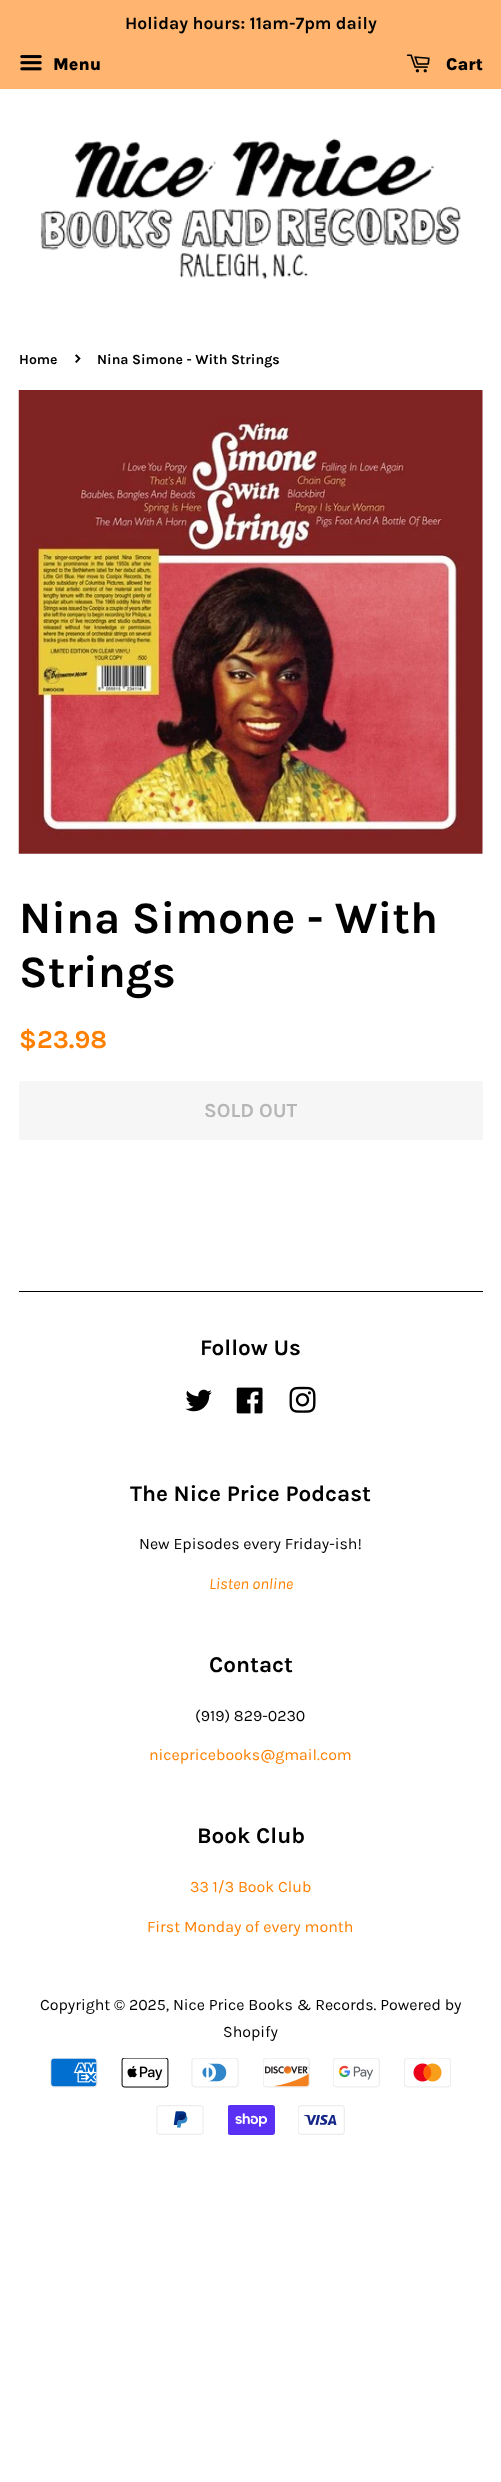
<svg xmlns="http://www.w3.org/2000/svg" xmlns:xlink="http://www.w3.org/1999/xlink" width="501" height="2482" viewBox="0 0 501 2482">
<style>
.cls-1{font:bold 17.5px Karla;fill:#000000}
.cls-2{font:800 17.5px Karla;fill:#000000}
.cls-3{font:bold 14px Karla;fill:#000000}
.cls-4{font:bold 20px Karla;fill:#000000}
.cls-5{font:bold 45px Karla;fill:#000000}
.cls-6{font:bold 26px Karla;fill:#ff8000}
.cls-7{font:bold 20px Karla;fill:#b6b6b6}
.cls-8{font:bold 22.5px Karla;fill:#000000}
.cls-9{font:15.95px Karla;fill:#000000}
.cls-10{font:italic 15.95px Karla;fill:#ff8000}
.cls-11{font:15.95px Karla;fill:#ff8000}
</style>
<rect width="100%" height="100%" fill="#ffffff"/>
<rect fill="#ffb470" x="0" y="0" width="501" height="89"/>
<image xlink:href="image0.png" x="20" y="55" width="22" height="16"/>
<image xlink:href="image1.png" x="406" y="54" width="24" height="19"/>
<image xlink:href="image2.png" x="40" y="138" width="421" height="141"/>
<image xlink:href="image3.png" x="18" y="390" width="465" height="464"/>
<rect fill="#f6f6f6" x="19" y="1081" width="464" height="59" rx="2.5"/>
<rect fill="#000000" x="19" y="1291" width="464" height="1"/>
<image xlink:href="image4.png" x="185" y="1389" width="27" height="23"/>
<image xlink:href="image5.png" x="236" y="1387" width="27" height="27"/>
<image xlink:href="image6.png" x="289" y="1386" width="27" height="27"/>
<image xlink:href="image7.png" x="50" y="2058" width="48" height="30"/>
<image xlink:href="image8.png" x="121" y="2058" width="48" height="30"/>
<image xlink:href="image9.png" x="191" y="2058" width="48" height="30"/>
<image xlink:href="image10.png" x="263" y="2058" width="47" height="30"/>
<image xlink:href="image11.png" x="333" y="2058" width="47" height="30"/>
<image xlink:href="image12.png" x="404" y="2058" width="47" height="30"/>
<image xlink:href="image13.png" x="156" y="2105" width="48" height="30"/>
<image xlink:href="image14.png" x="228" y="2105" width="47" height="30"/>
<image xlink:href="image15.png" x="298" y="2105" width="47" height="30"/>
<text class="cls-1" x="125" y="29">Holiday hours: 11am-7pm daily</text>
<text class="cls-2" x="53" y="70">Menu</text>
<text class="cls-2" x="446" y="70">Cart</text>
<text class="cls-3" x="19" y="364">Home</text>
<text class="cls-4" x="74" y="364">›</text>
<text class="cls-3" x="97" y="364">Nina Simone - With Strings</text>
<text class="cls-5"><tspan x="19" y="933">Nina Simone - With</tspan><tspan x="19" y="987">Strings</tspan></text>
<text class="cls-6" x="19" y="1048">$23.98</text>
<text class="cls-7" x="204" y="1117">SOLD OUT</text>
<text class="cls-8" x="200" y="1355">Follow Us</text>
<text class="cls-8" x="130" y="1501">The Nice Price Podcast</text>
<text class="cls-9" x="139" y="1549">New Episodes every Friday-ish!</text>
<text class="cls-10" x="209" y="1589">Listen online</text>
<text class="cls-8" x="209" y="1672">Contact</text>
<text class="cls-9" x="195" y="1721">(919) 829-0230</text>
<text class="cls-11" x="149" y="1760">nicepricebooks@gmail.com</text>
<text class="cls-8" x="197" y="1843">Book Club</text>
<text class="cls-11" x="190" y="1892">33 1/3 Book Club</text>
<text class="cls-11" x="147" y="1932">First Monday of every month</text>
<text class="cls-9" x="40" y="2010">Copyright © 2025, Nice Price Books &amp; Records. Powered by</text>
<text class="cls-9" x="223" y="2037">Shopify</text>
</svg>
